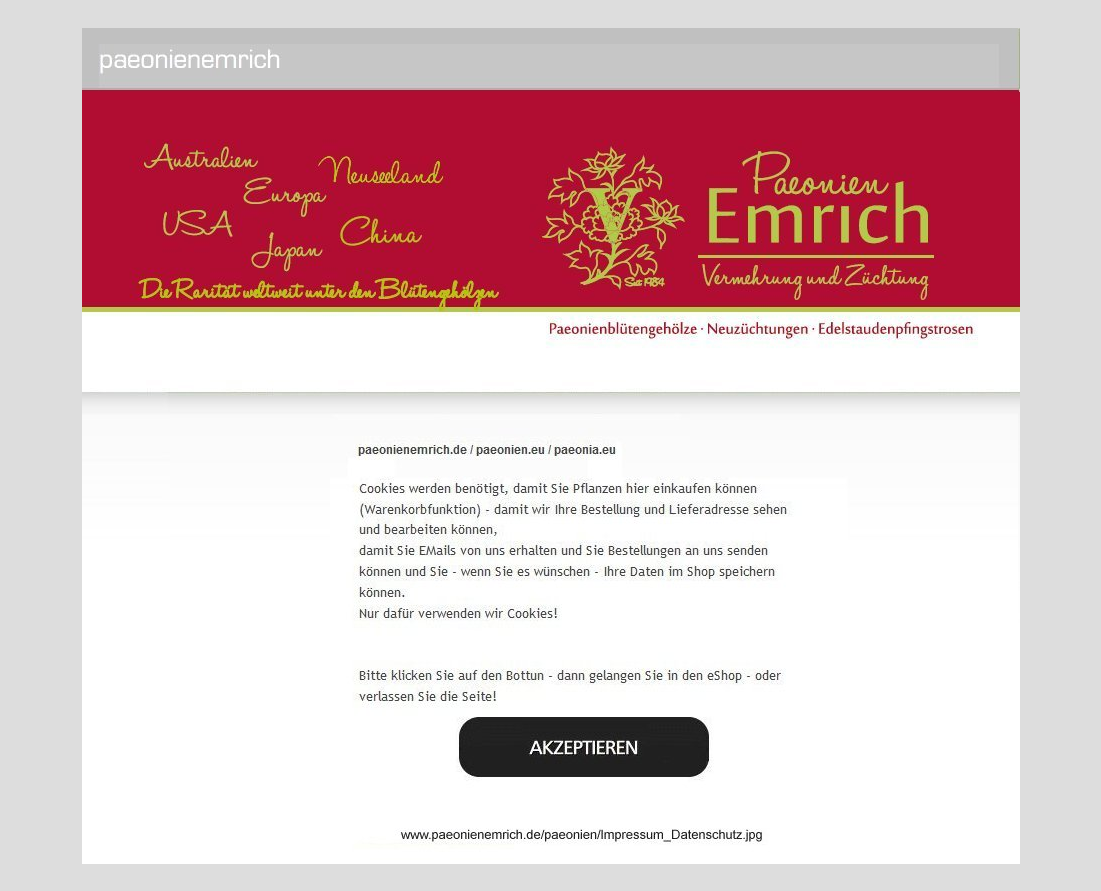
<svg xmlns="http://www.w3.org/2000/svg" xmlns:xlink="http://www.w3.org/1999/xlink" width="1101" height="891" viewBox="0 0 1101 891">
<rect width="100%" height="100%" fill="#dddddd"/>
<image xlink:href="image0.png" x="82" y="28" width="938" height="836"/>
</svg>
